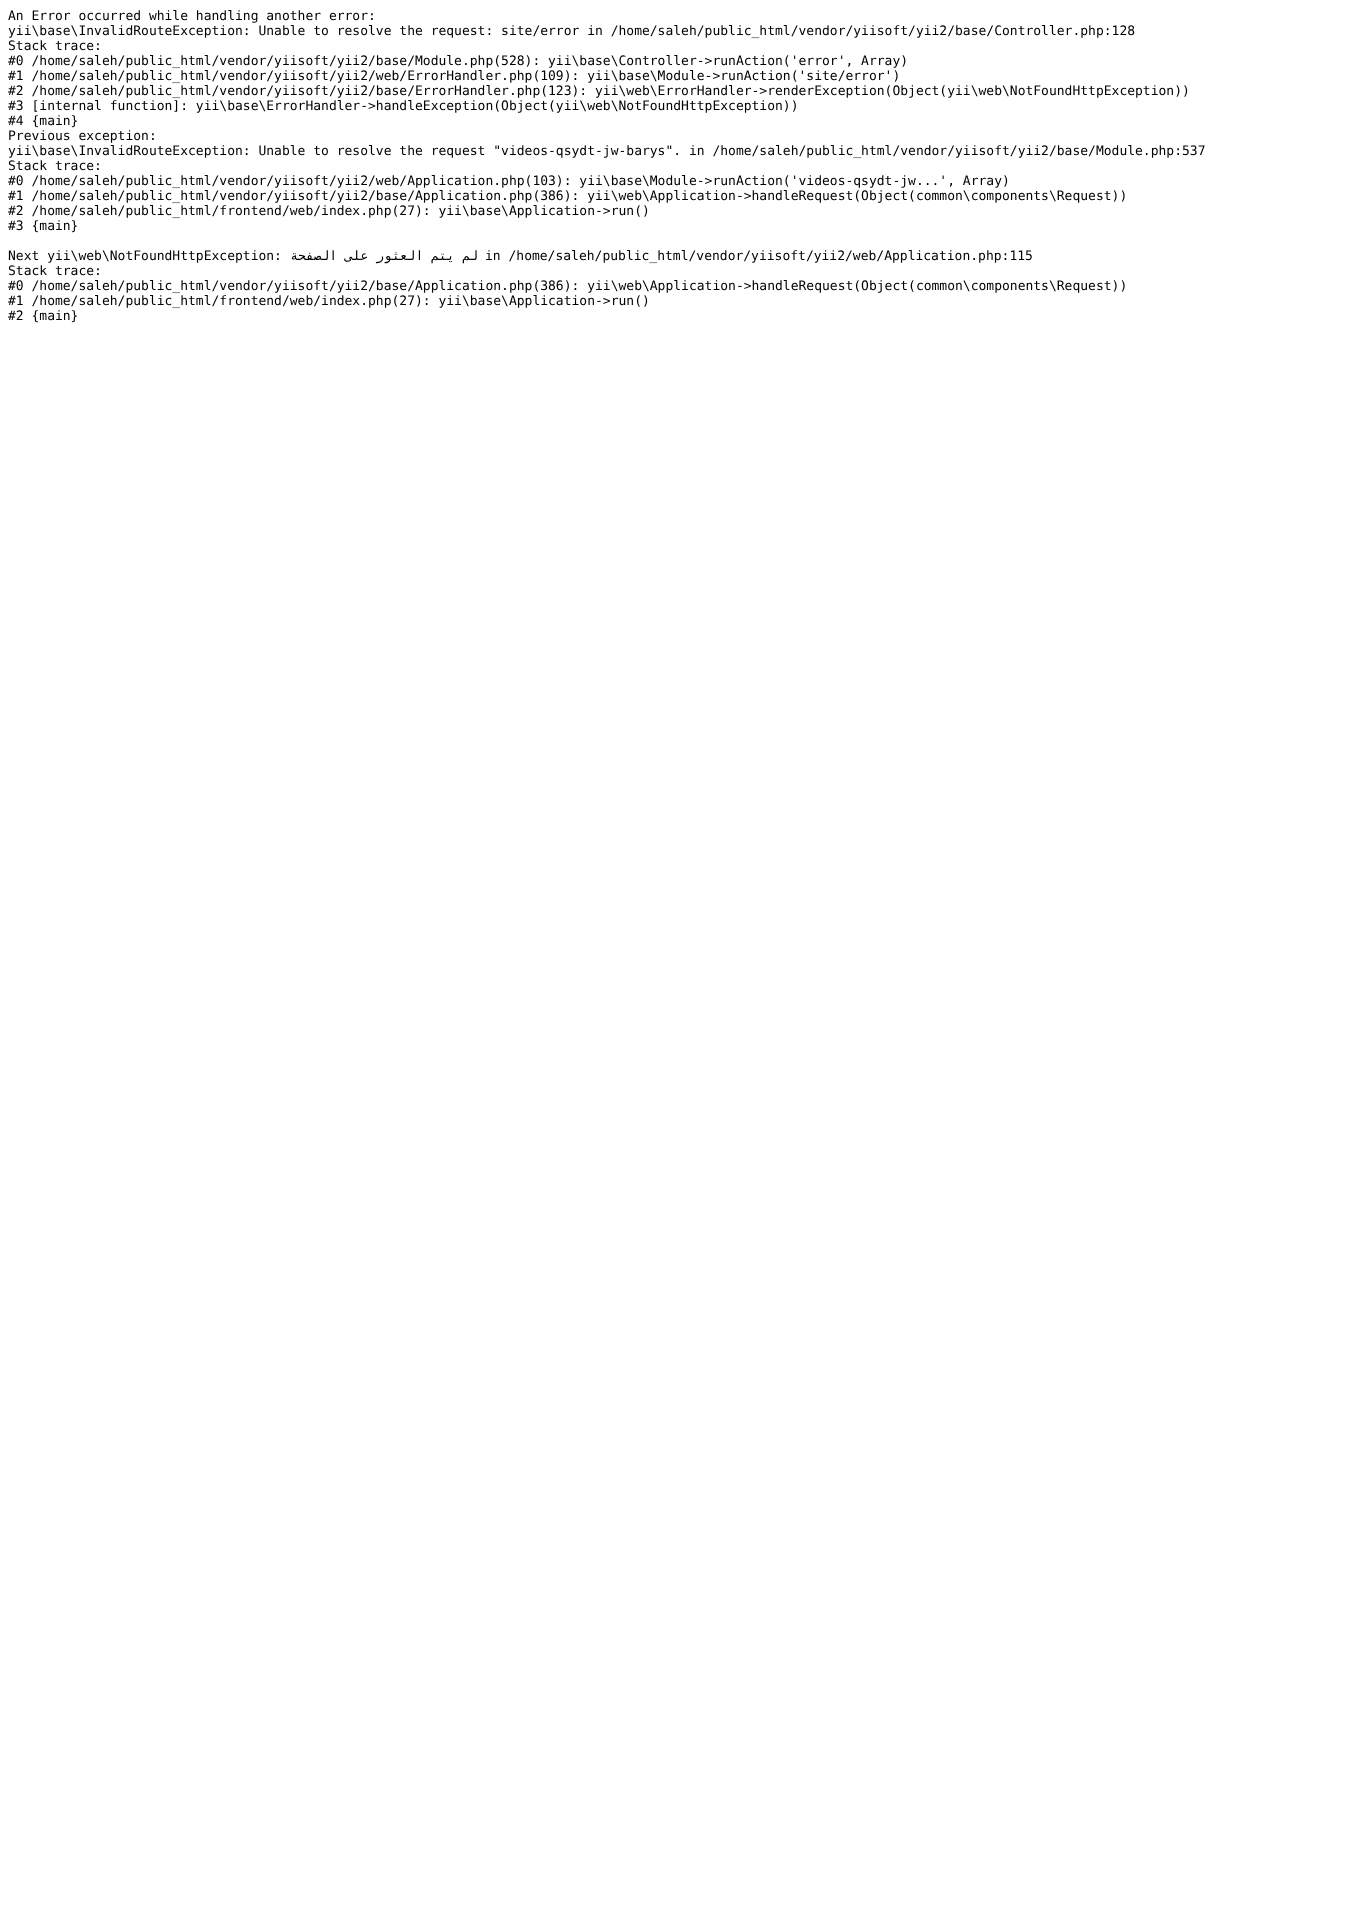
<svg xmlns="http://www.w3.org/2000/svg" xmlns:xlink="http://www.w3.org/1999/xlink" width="1365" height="1907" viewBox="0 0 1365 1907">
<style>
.cls-1{font:13px DejaVu Sans Mono;fill:#000000}
.cls-2{font:13px DejaVu Sans Mono;direction:rtl;fill:#000000}
</style>
<rect width="100%" height="100%" fill="#ffffff"/>
<text class="cls-1"><tspan x="8" y="20">An Error occurred while handling another error:</tspan><tspan x="8" y="35">yii\base\InvalidRouteException: Unable to resolve the request: site/error in /home/saleh/public_html/vendor/yiisoft/yii2/base/Controller.php:128</tspan><tspan x="8" y="50">Stack trace:</tspan><tspan x="8" y="65">#0 /home/saleh/public_html/vendor/yiisoft/yii2/base/Module.php(528): yii\base\Controller-&gt;runAction('error', Array)</tspan><tspan x="8" y="80">#1 /home/saleh/public_html/vendor/yiisoft/yii2/web/ErrorHandler.php(109): yii\base\Module-&gt;runAction('site/error')</tspan><tspan x="8" y="95">#2 /home/saleh/public_html/vendor/yiisoft/yii2/base/ErrorHandler.php(123): yii\web\ErrorHandler-&gt;renderException(Object(yii\web\NotFoundHttpException))</tspan><tspan x="8" y="110">#3 [internal function]: yii\base\ErrorHandler-&gt;handleException(Object(yii\web\NotFoundHttpException))</tspan><tspan x="8" y="125">#4 {main}</tspan><tspan x="8" y="140">Previous exception:</tspan><tspan x="8" y="155">yii\base\InvalidRouteException: Unable to resolve the request "videos-qsydt-jw-barys". in /home/saleh/public_html/vendor/yiisoft/yii2/base/Module.php:537</tspan><tspan x="8" y="170">Stack trace:</tspan><tspan x="8" y="185">#0 /home/saleh/public_html/vendor/yiisoft/yii2/web/Application.php(103): yii\base\Module-&gt;runAction('videos-qsydt-jw...', Array)</tspan><tspan x="8" y="200">#1 /home/saleh/public_html/vendor/yiisoft/yii2/base/Application.php(386): yii\web\Application-&gt;handleRequest(Object(common\components\Request))</tspan><tspan x="8" y="215">#2 /home/saleh/public_html/frontend/web/index.php(27): yii\base\Application-&gt;run()</tspan><tspan x="8" y="230">#3 {main}</tspan></text>
<text class="cls-1" x="8" y="260">Next yii\web\NotFoundHttpException:</text>
<text class="cls-2" x="478" y="260">لم يتم العثور على الصفحة</text>
<text class="cls-1" x="485" y="260">in /home/saleh/public_html/vendor/yiisoft/yii2/web/Application.php:115</text>
<text class="cls-1"><tspan x="8" y="275">Stack trace:</tspan><tspan x="8" y="290">#0 /home/saleh/public_html/vendor/yiisoft/yii2/base/Application.php(386): yii\web\Application-&gt;handleRequest(Object(common\components\Request))</tspan><tspan x="8" y="305">#1 /home/saleh/public_html/frontend/web/index.php(27): yii\base\Application-&gt;run()</tspan><tspan x="8" y="320">#2 {main}</tspan></text>
</svg>
